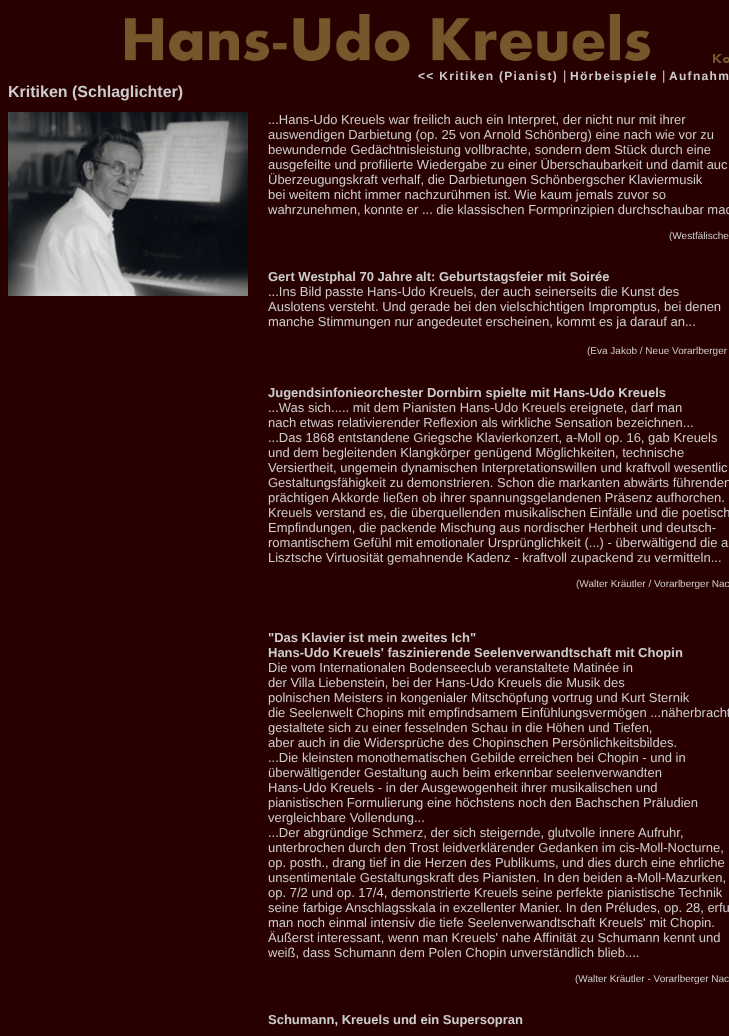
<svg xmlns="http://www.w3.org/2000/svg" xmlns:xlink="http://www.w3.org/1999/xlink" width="729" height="1036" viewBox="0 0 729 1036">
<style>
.cls-1{font:bold 12px Liberation Sans;letter-spacing:1.3px;fill:#cccccc}
.cls-2{font:13px Liberation Sans;fill:#cccccc}
.cls-3{font:bold 16px Liberation Sans;fill:#cccccc}
.cls-4{font:10px Liberation Sans;fill:#cccccc}
.cls-5{font:bold 13px Liberation Sans;fill:#cccccc}
</style>
<rect width="100%" height="100%" fill="#290000"/>
<image xlink:href="image0.png" x="125" y="14" width="604" height="49"/>
<image xlink:href="image1.png" x="8" y="112" width="240" height="184"/>
<text class="cls-1" x="418" y="80">&lt;&lt; Kritiken (Pianist)</text>
<text class="cls-2" x="563" y="80">|</text>
<text class="cls-1" x="570" y="80">Hörbeispiele</text>
<text class="cls-2" x="662" y="80">|</text>
<text class="cls-1" x="669" y="80">Aufnahm</text>
<text class="cls-3" x="8" y="97">Kritiken (Schlaglichter)</text>
<text class="cls-2"><tspan x="268" y="124">...Hans-Udo Kreuels war freilich auch ein Interpret, der nicht nur mit ihrer</tspan><tspan x="268" y="139">auswendigen Darbietung (op. 25 von Arnold Schönberg) eine nach wie vor zu</tspan><tspan x="268" y="154">bewundernde Gedächtnisleistung vollbrachte, sondern dem Stück durch eine</tspan><tspan x="268" y="169">ausgefeilte und profilierte Wiedergabe zu einer Überschaubarkeit und damit auc</tspan><tspan x="268" y="184">Überzeugungskraft verhalf, die Darbietungen Schönbergscher Klaviermusik</tspan><tspan x="268" y="199">bei weitem nicht immer nachzurühmen ist. Wie kaum jemals zuvor so</tspan><tspan x="268" y="214">wahrzunehmen, konnte er ... die klassischen Formprinzipien durchschaubar mac</tspan></text>
<text class="cls-4" x="669" y="239">(Westfälische</text>
<text class="cls-5" x="268" y="281">Gert Westphal 70 Jahre alt: Geburtstagsfeier mit Soirée</text>
<text class="cls-2"><tspan x="268" y="296">...Ins Bild passte Hans-Udo Kreuels, der auch seinerseits die Kunst des</tspan><tspan x="268" y="311">Auslotens versteht. Und gerade bei den vielschichtigen Impromptus, bei denen</tspan><tspan x="268" y="326">manche Stimmungen nur angedeutet erscheinen, kommt es ja darauf an...</tspan></text>
<text class="cls-4" x="587" y="354">(Eva Jakob / Neue Vorarlberger</text>
<text class="cls-5" x="268" y="397">Jugendsinfonieorchester Dornbirn spielte mit Hans-Udo Kreuels</text>
<text class="cls-2"><tspan x="268" y="412">...Was sich..... mit dem Pianisten Hans-Udo Kreuels ereignete, darf man</tspan><tspan x="268" y="427">nach etwas relativierender Reflexion als wirkliche Sensation bezeichnen...</tspan><tspan x="268" y="442">...Das 1868 entstandene Griegsche Klavierkonzert, a-Moll op. 16, gab Kreuels</tspan><tspan x="268" y="457">und dem begleitenden Klangkörper genügend Möglichkeiten, technische</tspan><tspan x="268" y="472">Versiertheit, ungemein dynamischen Interpretationswillen und kraftvoll wesentlic</tspan><tspan x="268" y="487">Gestaltungsfähigkeit zu demonstrieren. Schon die markanten abwärts führenden</tspan><tspan x="268" y="502">prächtigen Akkorde ließen ob ihrer spannungsgelandenen Präsenz aufhorchen.</tspan><tspan x="268" y="517">Kreuels verstand es, die überquellenden musikalischen Einfälle und die poetisch</tspan><tspan x="268" y="532">Empfindungen, die packende Mischung aus nordischer Herbheit und deutsch-</tspan><tspan x="268" y="547">romantischem Gefühl mit emotionaler Ursprünglichkeit (...) - überwältigend die a</tspan><tspan x="268" y="562">Lisztsche Virtuosität gemahnende Kadenz - kraftvoll zupackend zu vermitteln...</tspan></text>
<text class="cls-4" x="576" y="587">(Walter Kräutler / Vorarlberger Nac</text>
<text class="cls-5"><tspan x="268" y="642">"Das Klavier ist mein zweites Ich"</tspan><tspan x="268" y="657">Hans-Udo Kreuels' faszinierende Seelenverwandtschaft mit Chopin</tspan></text>
<text class="cls-2"><tspan x="268" y="672">Die vom Internationalen Bodenseeclub veranstaltete Matinée in</tspan><tspan x="268" y="687">der Villa Liebenstein, bei der Hans-Udo Kreuels die Musik des</tspan><tspan x="268" y="702">polnischen Meisters in kongenialer Mitschöpfung vortrug und Kurt Sternik</tspan><tspan x="268" y="717">die Seelenwelt Chopins mit empfindsamem Einfühlungsvermögen ...näherbracht</tspan><tspan x="268" y="732">gestaltete sich zu einer fesselnden Schau in die Höhen und Tiefen,</tspan><tspan x="268" y="747">aber auch in die Widersprüche des Chopinschen Persönlichkeitsbildes.</tspan><tspan x="268" y="762">...Die kleinsten monothematischen Gebilde erreichen bei Chopin - und in</tspan><tspan x="268" y="777">überwältigender Gestaltung auch beim erkennbar seelenverwandten</tspan><tspan x="268" y="792">Hans-Udo Kreuels - in der Ausgewogenheit ihrer musikalischen und</tspan><tspan x="268" y="807">pianistischen Formulierung eine höchstens noch den Bachschen Präludien</tspan><tspan x="268" y="822">vergleichbare Vollendung...</tspan><tspan x="268" y="837">...Der abgründige Schmerz, der sich steigernde, glutvolle innere Aufruhr,</tspan><tspan x="268" y="852">unterbrochen durch den Trost leidverklärender Gedanken im cis-Moll-Nocturne,</tspan><tspan x="268" y="867">op. posth., drang tief in die Herzen des Publikums, und dies durch eine ehrliche</tspan><tspan x="268" y="882">unsentimentale Gestaltungskraft des Pianisten. In den beiden a-Moll-Mazurken,</tspan><tspan x="268" y="897">op. 7/2 und op. 17/4, demonstrierte Kreuels seine perfekte pianistische Technik</tspan><tspan x="268" y="912">seine farbige Anschlagsskala in exzellenter Manier. In den Préludes, op. 28, erfu</tspan><tspan x="268" y="927">man noch einmal intensiv die tiefe Seelenverwandtschaft Kreuels' mit Chopin.</tspan><tspan x="268" y="942">Äußerst interessant, wenn man Kreuels' nahe Affinität zu Schumann kennt und</tspan><tspan x="268" y="957">weiß, dass Schumann dem Polen Chopin unverständlich blieb....</tspan></text>
<text class="cls-4" x="575" y="982">(Walter Kräutler - Vorarlberger Nac</text>
<text class="cls-5" x="268" y="1024">Schumann, Kreuels und ein Supersopran</text>
</svg>
